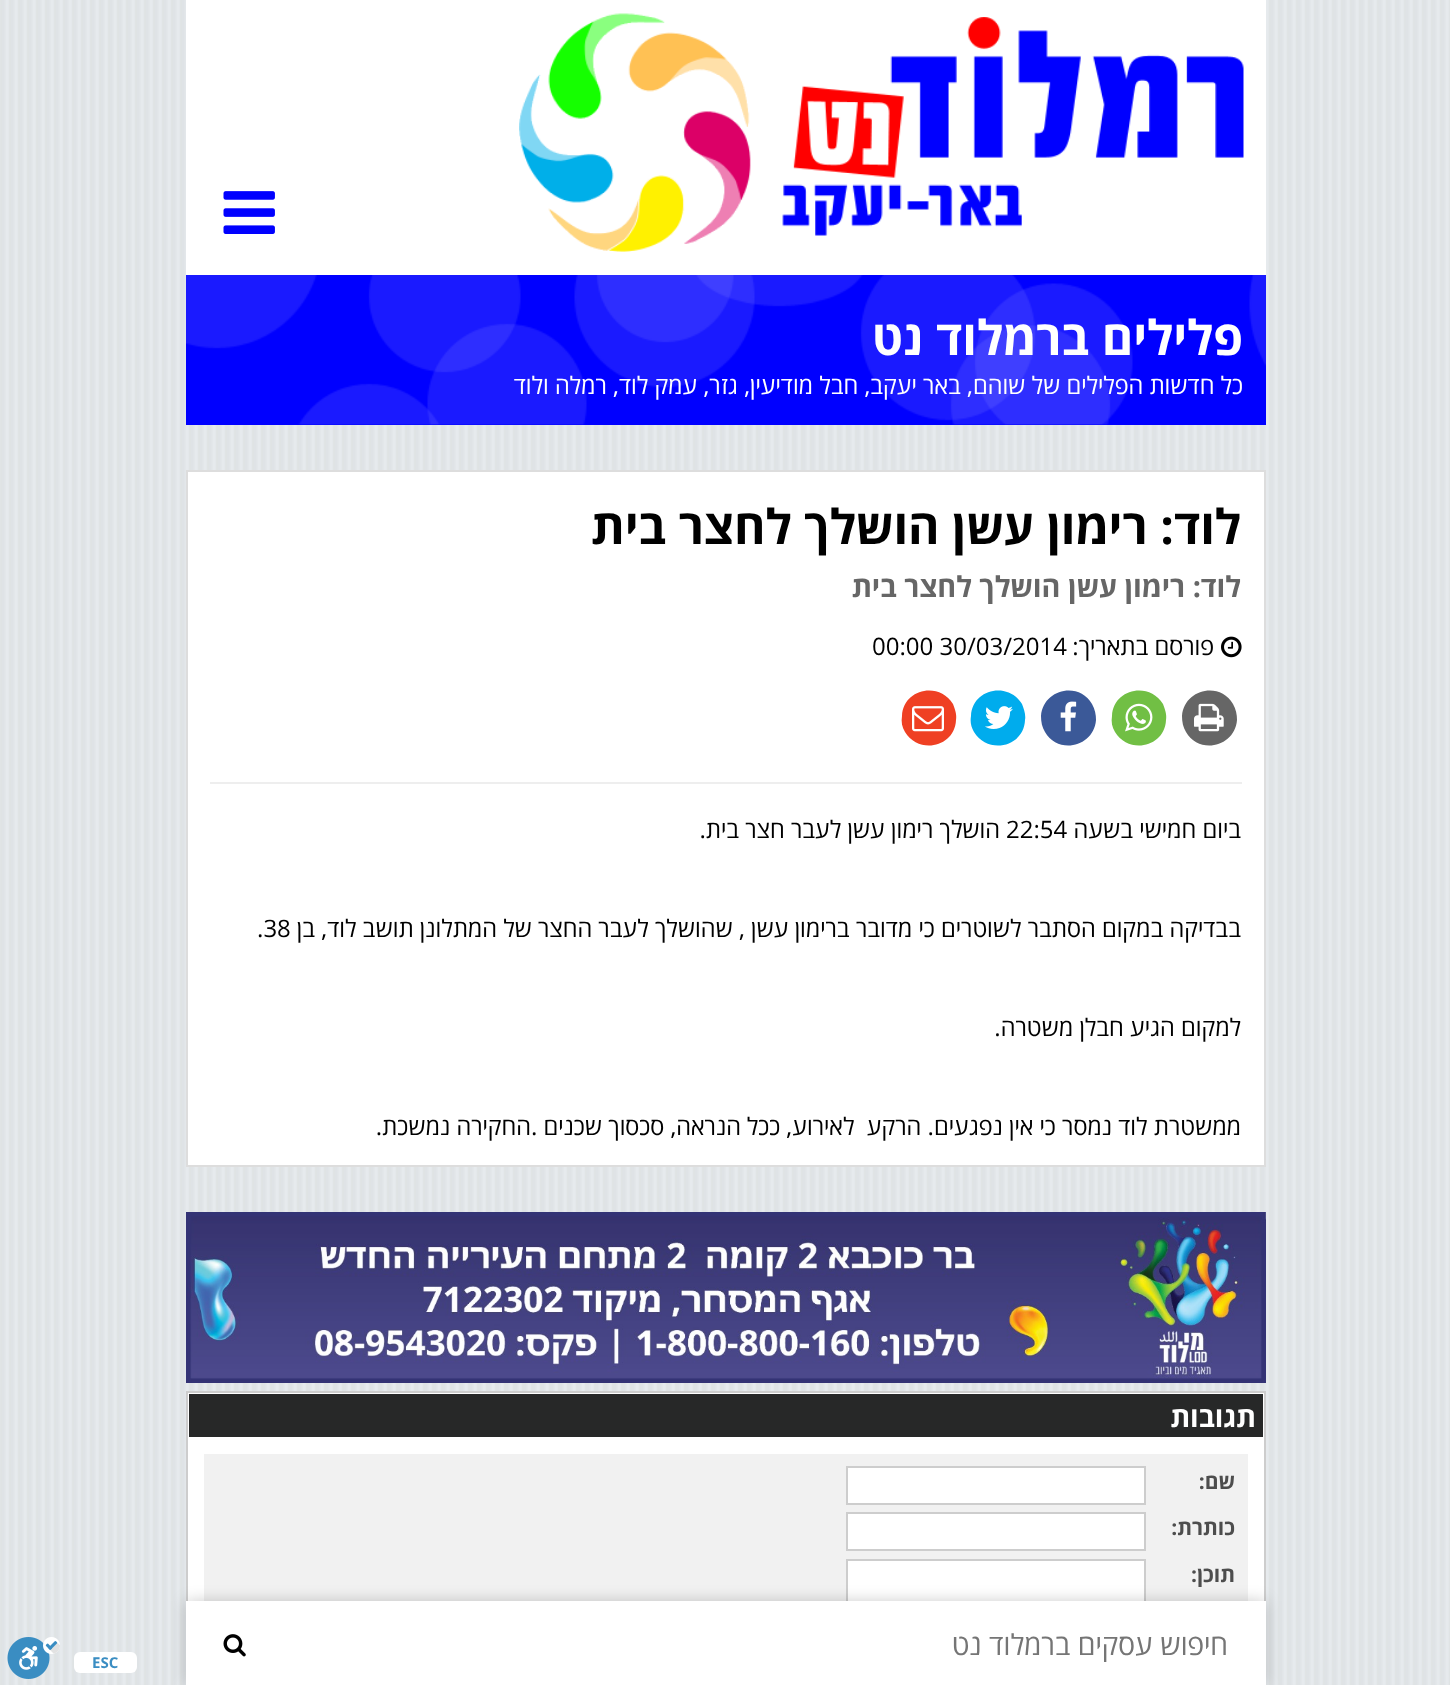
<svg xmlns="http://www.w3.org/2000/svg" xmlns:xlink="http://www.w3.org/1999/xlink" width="1450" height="1685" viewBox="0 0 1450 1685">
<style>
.cls-1{font:bold 48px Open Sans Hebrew;direction:rtl;fill:#ffffff}
.cls-2{font:24px Open Sans Hebrew;direction:rtl;fill:#ffffff}
.cls-3{font:bold 48px Open Sans Hebrew;direction:rtl;fill:#000000}
.cls-4{font:bold 28.75px Open Sans Hebrew;direction:rtl;fill:#666666}
.cls-5{font:24px Open Sans Hebrew;direction:rtl;fill:#000000}
.cls-6{font:24px Open Sans Hebrew;fill:#000000}
.cls-7{font:bold 28px Open Sans Hebrew;direction:rtl;fill:#ffffff}
.cls-8{font:bold 21px Open Sans Hebrew;direction:rtl;fill:#4d4d4d}
.cls-9{font:28.75px Open Sans Hebrew;direction:rtl;fill:#757575}
.cls-10{font:bold 15px Open Sans Hebrew;fill:#3a8dc2}
</style>
<rect width="100%" height="100%" fill="#ffffff"/>
<image xlink:href="image0.png" x="0" y="0" width="1450" height="1685"/>
<rect fill="#ffffff" x="186" y="0" width="1080" height="275"/>
<image xlink:href="image1.png" x="519" y="13" width="725" height="239"/>
<image xlink:href="image2.png" x="223" y="191" width="52" height="43"/>
<rect fill="#0000ff" x="186" y="275" width="1080" height="150"/>
<image xlink:href="image3.png" x="186" y="275" width="1080" height="150"/>
<rect fill="#ffffff" stroke="#dddddd" stroke-width="2" x="187" y="471" width="1078" height="695"/>
<image xlink:href="image4.png" x="1221" y="636" width="21" height="22"/>
<path fill="#666666" d="M1233 704C1236 709 1237 715 1237 720C1235 747 1199 755 1186 732C1183 727 1182 722 1182 716C1184 689 1220 681 1233 704Z"/>
<image xlink:href="image5.png" x="1194" y="703" width="30" height="29"/>
<path fill="#71bf44" d="M1163 704C1165 709 1167 715 1166 720C1165 747 1129 755 1115 732C1112 727 1111 722 1112 716C1113 689 1149 681 1163 704Z"/>
<image xlink:href="image6.png" x="1125" y="703" width="28" height="29"/>
<path fill="#3b5998" d="M1092 704C1095 709 1096 715 1096 720C1094 747 1058 755 1045 732C1042 727 1041 722 1041 716C1043 689 1079 681 1092 704Z"/>
<image xlink:href="image7.png" x="1060" y="701" width="17" height="31"/>
<path fill="#00aced" d="M1022 704C1024 709 1026 715 1025 720C1024 747 988 755 974 732C971 727 970 722 971 716C972 689 1008 681 1022 704Z"/>
<image xlink:href="image8.png" x="985" y="706" width="28" height="23"/>
<path fill="#ef4023" d="M953 704C955 709 957 715 956 720C955 747 919 755 905 732C902 727 901 722 902 716C903 689 939 681 953 704Z"/>
<image xlink:href="image9.png" x="912" y="706" width="32" height="26"/>
<rect fill="#eeeeee" x="210" y="782" width="1032" height="2"/>
<image xlink:href="image10.png" x="186" y="1212" width="1080" height="171"/>
<rect fill="#ffffff" x="188" y="1393" width="1076" height="208"/>
<rect fill="none" stroke="#cdcdcd" stroke-width="2" x="187" y="1392" width="1078" height="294"/>
<rect fill="#272828" x="189" y="1394" width="1074" height="43"/>
<rect fill="#f1f1f1" x="204" y="1454" width="1044" height="147"/>
<rect fill="#ffffff" stroke="#cdcdcd" stroke-width="2" x="847" y="1467" width="298" height="37"/>
<rect fill="#ffffff" stroke="#cdcdcd" stroke-width="2" x="847" y="1513" width="298" height="37"/>
<rect fill="#ffffff" x="848" y="1561" width="296" height="40"/>
<rect fill="none" stroke="#cdcdcd" stroke-width="2" x="847" y="1560" width="298" height="58"/>
<rect fill="#000000" fill-opacity="0.2" filter="blur(7.5px)" x="186" y="1601" width="1080" height="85"/>
<rect fill="#ffffff" x="186" y="1601" width="1080" height="84"/>
<image xlink:href="image11.png" x="223" y="1634" width="23" height="23"/>
<rect fill="#ffffff" x="74" y="1652" width="63" height="21" rx="6"/>
<image xlink:href="image12.png" x="7" y="1637" width="53" height="42"/>
<text class="cls-1" x="1243" y="355">פלילים ברמלוד נט</text>
<text class="cls-2" x="1243" y="394">כל חדשות הפלילים של שוהם, באר יעקב, חבל מודיעין, גזר, עמק לוד, רמלה ולוד</text>
<text class="cls-3" x="1241" y="544">לוד: רימון עשן הושלך לחצר בית</text>
<text class="cls-4" x="1241" y="597">לוד: רימון עשן הושלך לחצר בית</text>
<text class="cls-5" x="1214" y="655">פורסם בתאריך:</text>
<text class="cls-6" x="872" y="655">00:00 30/03/2014</text>
<text class="cls-5" x="1241" y="838">ביום חמישי בשעה</text>
<text class="cls-6" x="1006" y="838">22:54</text>
<text class="cls-5" x="1000" y="838">הושלך רימון עשן לעבר חצר בית.</text>
<text class="cls-5" x="1241" y="937">בבדיקה במקום הסתבר לשוטרים כי מדובר ברימון עשן , שהושלך לעבר החצר של המתלונן תושב לוד, בן</text>
<text class="cls-6" x="257" y="937">.38</text>
<text class="cls-5" x="1241" y="1036">למקום הגיע חבלן משטרה.</text>
<text class="cls-5" xml:space="preserve" x="1241" y="1135">ממשטרת לוד נמסר כי אין נפגעים. הרקע  לאירוע, ככל</text>
<text class="cls-5" x="741" y="1135">הנראה, סכסוך שכנים</text>
<text class="cls-6" x="531" y="1135">.</text>
<text class="cls-5" x="531" y="1135">החקירה נמשכת.</text>
<text class="cls-7" x="1256" y="1427">תגובות</text>
<text class="cls-8" x="1235" y="1489">שם:</text>
<text class="cls-8" x="1235" y="1535">כותרת:</text>
<text class="cls-8" x="1235" y="1582">תוכן:</text>
<text class="cls-9" x="1228" y="1655">חיפוש עסקים ברמלוד נט</text>
<text class="cls-10" x="92" y="1668">ESC</text>
</svg>
